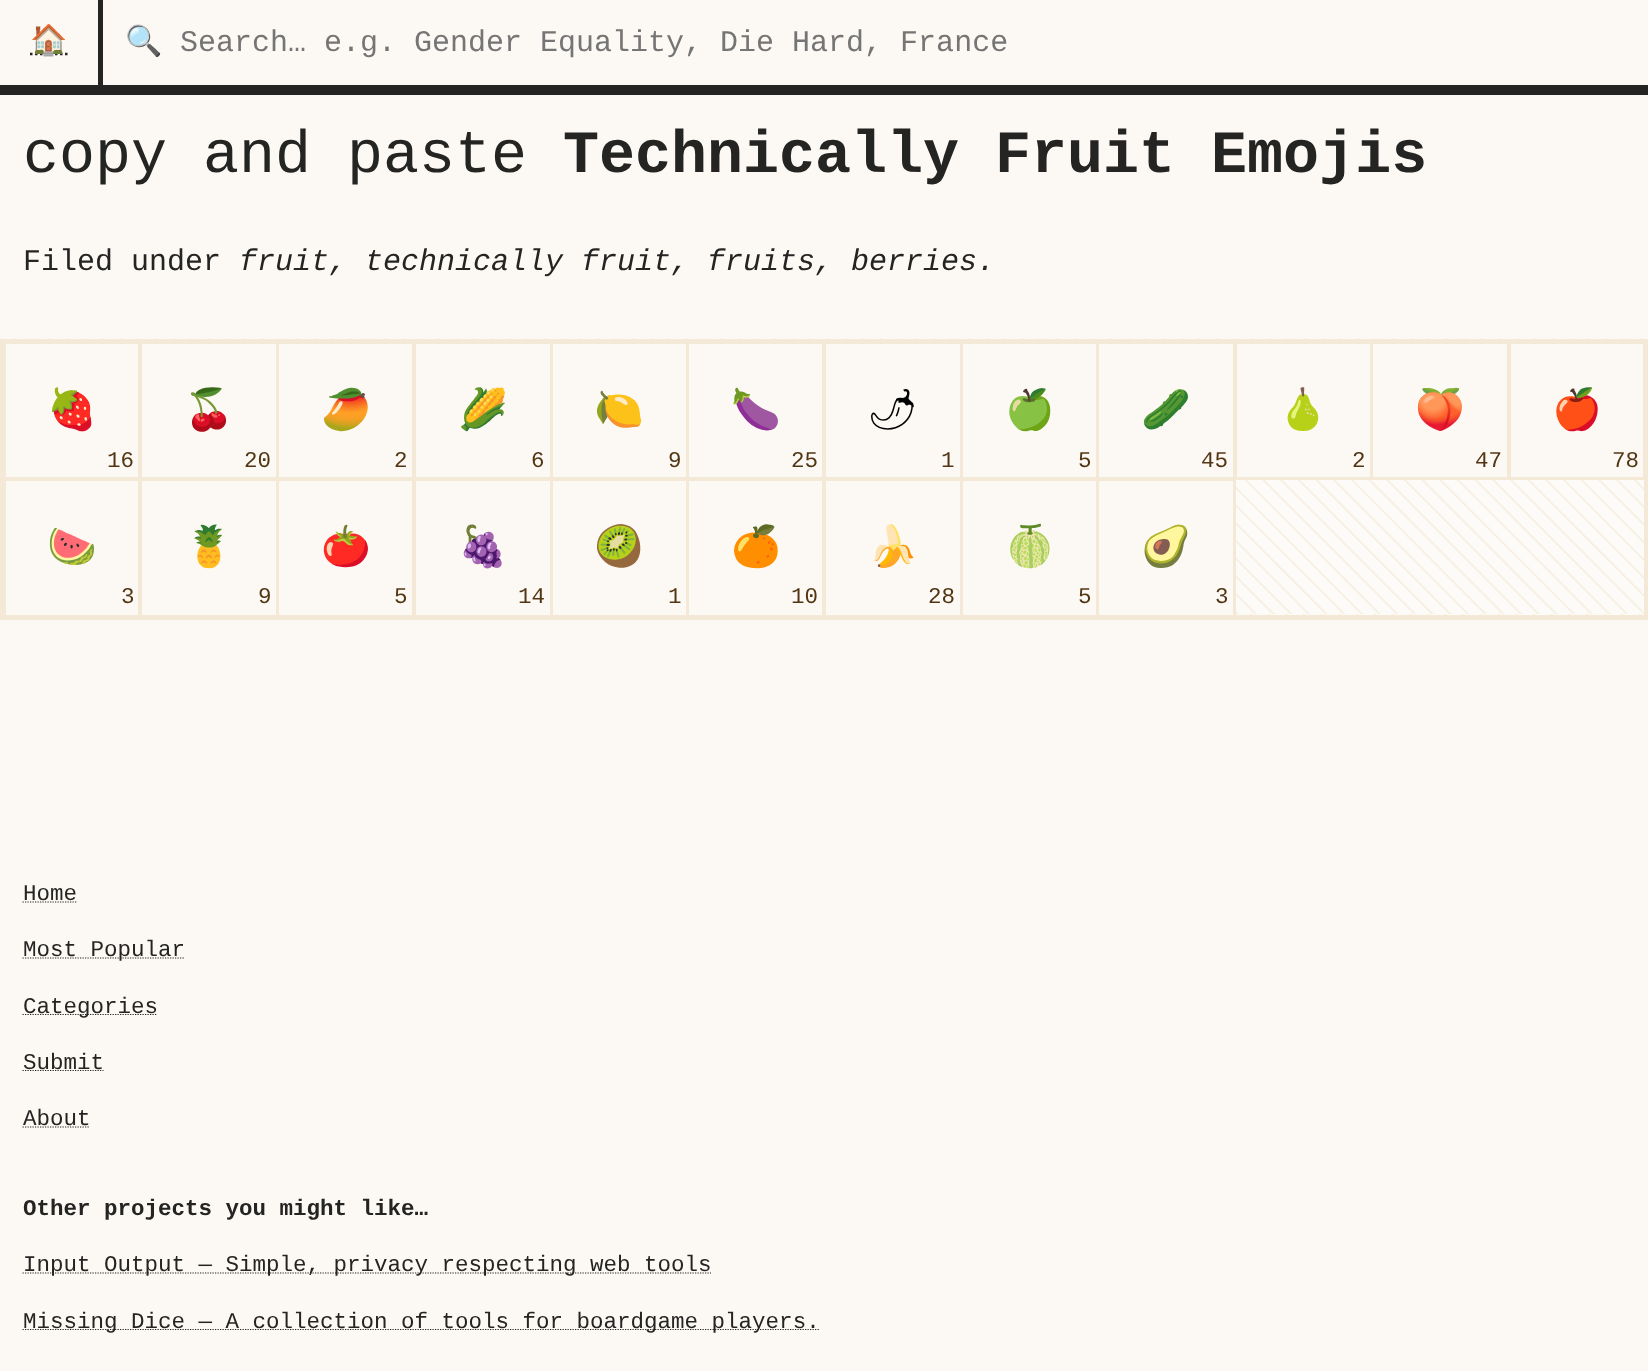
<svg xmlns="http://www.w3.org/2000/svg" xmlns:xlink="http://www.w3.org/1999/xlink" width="1648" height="1371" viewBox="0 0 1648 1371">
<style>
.cls-1{font:30px Noto Color Emoji;fill:#242423}
.cls-2{font:30px Noto Color Emoji;fill:#757575}
.cls-3{font:30px Liberation Mono;fill:#757575}
.cls-4{font:60px Liberation Mono;fill:#242423}
.cls-5{font:bold 60px Liberation Mono;fill:#242423}
.cls-6{font:30px Liberation Mono;fill:#242423}
.cls-7{font:italic 30px Liberation Mono;fill:#242423}
.cls-8{font:40px Noto Color Emoji;fill:#000000}
.cls-9{font:22.5px Liberation Mono;fill:#523614}
.cls-10{font:40px Noto Emoji;fill:#000000}
.cls-11{font:22.5px Liberation Mono;fill:#242423}
.cls-12{font:bold 22.5px Liberation Mono;fill:#242423}
</style>
<defs>
<clipPath id="clip1"><rect x="125" y="24" width="1495" height="36"/></clipPath>
</defs>
<rect width="100%" height="100%" fill="#fcf9f4"/>
<rect fill="#242423" x="98" y="0" width="5" height="85"/>
<path fill="none" stroke="#242423" stroke-width="2.5" stroke-dasharray="2.5 2.5" d="M30 54H67.5"/>
<rect fill="#242423" x="0" y="85" width="1648" height="10"/>
<image xlink:href="image0.png" x="0" y="338" width="1648" height="277"/>
<rect fill="none" stroke="#f4e9d7" stroke-width="5" x="2.5" y="341.5" width="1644" height="276"/>
<rect fill="#fcf9f4" x="6" y="344" width="132" height="133"/>
<rect fill="none" stroke="#f4e9d7" stroke-width="3" x="4.5" y="342.5" width="135" height="136"/>
<rect fill="#fcf9f4" x="142" y="344" width="134" height="133"/>
<rect fill="none" stroke="#f4e9d7" stroke-width="3" x="140.5" y="342.5" width="137" height="136"/>
<rect fill="#fcf9f4" x="279" y="344" width="133" height="133"/>
<rect fill="none" stroke="#f4e9d7" stroke-width="3" x="277.5" y="342.5" width="136" height="136"/>
<rect fill="#fcf9f4" x="416" y="344" width="134" height="133"/>
<rect fill="none" stroke="#f4e9d7" stroke-width="3" x="414.5" y="342.5" width="137" height="136"/>
<rect fill="#fcf9f4" x="553" y="344" width="133" height="133"/>
<rect fill="none" stroke="#f4e9d7" stroke-width="3" x="551.5" y="342.5" width="136" height="136"/>
<rect fill="#fcf9f4" x="689" y="344" width="133" height="133"/>
<rect fill="none" stroke="#f4e9d7" stroke-width="3" x="687.5" y="342.5" width="136" height="136"/>
<rect fill="#fcf9f4" x="826" y="344" width="134" height="133"/>
<rect fill="none" stroke="#f4e9d7" stroke-width="3" x="824.5" y="342.5" width="137" height="136"/>
<rect fill="#fcf9f4" x="963" y="344" width="133" height="133"/>
<rect fill="none" stroke="#f4e9d7" stroke-width="3" x="961.5" y="342.5" width="136" height="136"/>
<rect fill="#fcf9f4" x="1099" y="344" width="134" height="133"/>
<rect fill="none" stroke="#f4e9d7" stroke-width="3" x="1097.5" y="342.5" width="137" height="136"/>
<rect fill="#fcf9f4" x="1237" y="344" width="133" height="133"/>
<rect fill="none" stroke="#f4e9d7" stroke-width="3" x="1235.5" y="342.5" width="136" height="136"/>
<rect fill="#fcf9f4" x="1373" y="344" width="134" height="133"/>
<rect fill="none" stroke="#f4e9d7" stroke-width="3" x="1371.5" y="342.5" width="137" height="136"/>
<rect fill="#fcf9f4" x="1511" y="344" width="132" height="133"/>
<rect fill="none" stroke="#f4e9d7" stroke-width="3" x="1509.5" y="342.5" width="135" height="136"/>
<rect fill="#fcf9f4" x="6" y="481" width="132" height="134"/>
<rect fill="none" stroke="#f4e9d7" stroke-width="3" x="4.5" y="479.5" width="135" height="137"/>
<rect fill="#fcf9f4" x="142" y="481" width="134" height="134"/>
<rect fill="none" stroke="#f4e9d7" stroke-width="3" x="140.5" y="479.5" width="137" height="137"/>
<rect fill="#fcf9f4" x="279" y="481" width="133" height="134"/>
<rect fill="none" stroke="#f4e9d7" stroke-width="3" x="277.5" y="479.5" width="136" height="137"/>
<rect fill="#fcf9f4" x="416" y="481" width="134" height="134"/>
<rect fill="none" stroke="#f4e9d7" stroke-width="3" x="414.5" y="479.5" width="137" height="137"/>
<rect fill="#fcf9f4" x="553" y="481" width="133" height="134"/>
<rect fill="none" stroke="#f4e9d7" stroke-width="3" x="551.5" y="479.5" width="136" height="137"/>
<rect fill="#fcf9f4" x="689" y="481" width="133" height="134"/>
<rect fill="none" stroke="#f4e9d7" stroke-width="3" x="687.5" y="479.5" width="136" height="137"/>
<rect fill="#fcf9f4" x="826" y="481" width="134" height="134"/>
<rect fill="none" stroke="#f4e9d7" stroke-width="3" x="824.5" y="479.5" width="137" height="137"/>
<rect fill="#fcf9f4" x="963" y="481" width="133" height="134"/>
<rect fill="none" stroke="#f4e9d7" stroke-width="3" x="961.5" y="479.5" width="136" height="137"/>
<rect fill="#fcf9f4" x="1099" y="481" width="134" height="134"/>
<rect fill="none" stroke="#f4e9d7" stroke-width="3" x="1097.5" y="479.5" width="137" height="137"/>
<path fill="none" stroke="#242423" stroke-width="1.2" stroke-dasharray="1.25 1.25" d="M22.5 902H76.5"/>
<path fill="none" stroke="#242423" stroke-width="1.2" stroke-dasharray="1.25 1.25" d="M22.5 958H184.5"/>
<path fill="none" stroke="#242423" stroke-width="1.2" stroke-dasharray="1.25 1.25" d="M22.5 1014.5H157.5"/>
<path fill="none" stroke="#242423" stroke-width="1.2" stroke-dasharray="1.25 1.25" d="M22.5 1070.5H103.5"/>
<path fill="none" stroke="#242423" stroke-width="1.2" stroke-dasharray="1.25 1.25" d="M22.5 1127H90"/>
<path fill="none" stroke="#242423" stroke-width="1.2" stroke-dasharray="1.25 1.25" d="M22.5 1273H711"/>
<path fill="none" stroke="#242423" stroke-width="1.2" stroke-dasharray="1.25 1.25" d="M22.5 1329.5H819"/>
<text class="cls-1" x="30" y="50">🏠</text>
<g clip-path="url(#clip1)">
<text class="cls-2" x="125" y="51">🔍</text>
</g>
<text class="cls-3" x="180" y="51">Search… e.g. Gender Equality, Die Hard, France</text>
<text class="cls-4" x="23" y="172">copy and paste</text>
<text class="cls-5" x="563" y="172">Technically Fruit Emojis</text>
<text class="cls-6" x="23" y="270">Filed under</text>
<text class="cls-7" x="239" y="270">fruit, technically fruit, fruits, berries.</text>
<text class="cls-8" x="47" y="423">🍓</text>
<text class="cls-9" x="107" y="467">16</text>
<text class="cls-8" x="184" y="423">🍒</text>
<text class="cls-9" x="244" y="467">20</text>
<text class="cls-8" x="321" y="423">🥭</text>
<text class="cls-9" x="394" y="467">2</text>
<text class="cls-8" x="458" y="423">🌽</text>
<text class="cls-9" x="531" y="467">6</text>
<text class="cls-8" x="594" y="423">🍋</text>
<text class="cls-9" x="668" y="467">9</text>
<text class="cls-8" x="731" y="423">🍆</text>
<text class="cls-9" x="791" y="467">25</text>
<text class="cls-10" x="867" y="423">🌶</text>
<text class="cls-9" x="941" y="467">1</text>
<text class="cls-8" x="1005" y="423">🍏</text>
<text class="cls-9" x="1078" y="467">5</text>
<text class="cls-8" x="1141" y="423">🥒</text>
<text class="cls-9" x="1201" y="467">45</text>
<text class="cls-8" x="1278" y="423">🍐</text>
<text class="cls-9" x="1352" y="467">2</text>
<text class="cls-8" x="1415" y="423">🍑</text>
<text class="cls-9" x="1475" y="467">47</text>
<text class="cls-8" x="1552" y="423">🍎</text>
<text class="cls-9" x="1612" y="467">78</text>
<text class="cls-8" x="47" y="560">🍉</text>
<text class="cls-9" x="121" y="603">3</text>
<text class="cls-8" x="184" y="560">🍍</text>
<text class="cls-9" x="258" y="603">9</text>
<text class="cls-8" x="321" y="560">🍅</text>
<text class="cls-9" x="394" y="603">5</text>
<text class="cls-8" x="458" y="560">🍇</text>
<text class="cls-9" x="518" y="603">14</text>
<text class="cls-8" x="594" y="560">🥝</text>
<text class="cls-9" x="668" y="603">1</text>
<text class="cls-8" x="731" y="560">🍊</text>
<text class="cls-9" x="791" y="603">10</text>
<text class="cls-8" x="868" y="560">🍌</text>
<text class="cls-9" x="928" y="603">28</text>
<text class="cls-8" x="1005" y="560">🍈</text>
<text class="cls-9" x="1078" y="603">5</text>
<text class="cls-8" x="1141" y="560">🥑</text>
<text class="cls-9" x="1215" y="603">3</text>
<text class="cls-11" x="23" y="900">Home</text>
<text class="cls-11" x="23" y="956">Most Popular</text>
<text class="cls-11" x="23" y="1013">Categories</text>
<text class="cls-11" x="23" y="1069">Submit</text>
<text class="cls-11" x="23" y="1125">About</text>
<text class="cls-12" x="23" y="1215">Other projects you might like…</text>
<text class="cls-11" x="23" y="1271">Input Output — Simple, privacy respecting web tools</text>
<text class="cls-11" x="23" y="1328">Missing Dice — A collection of tools for boardgame players.</text>
</svg>
